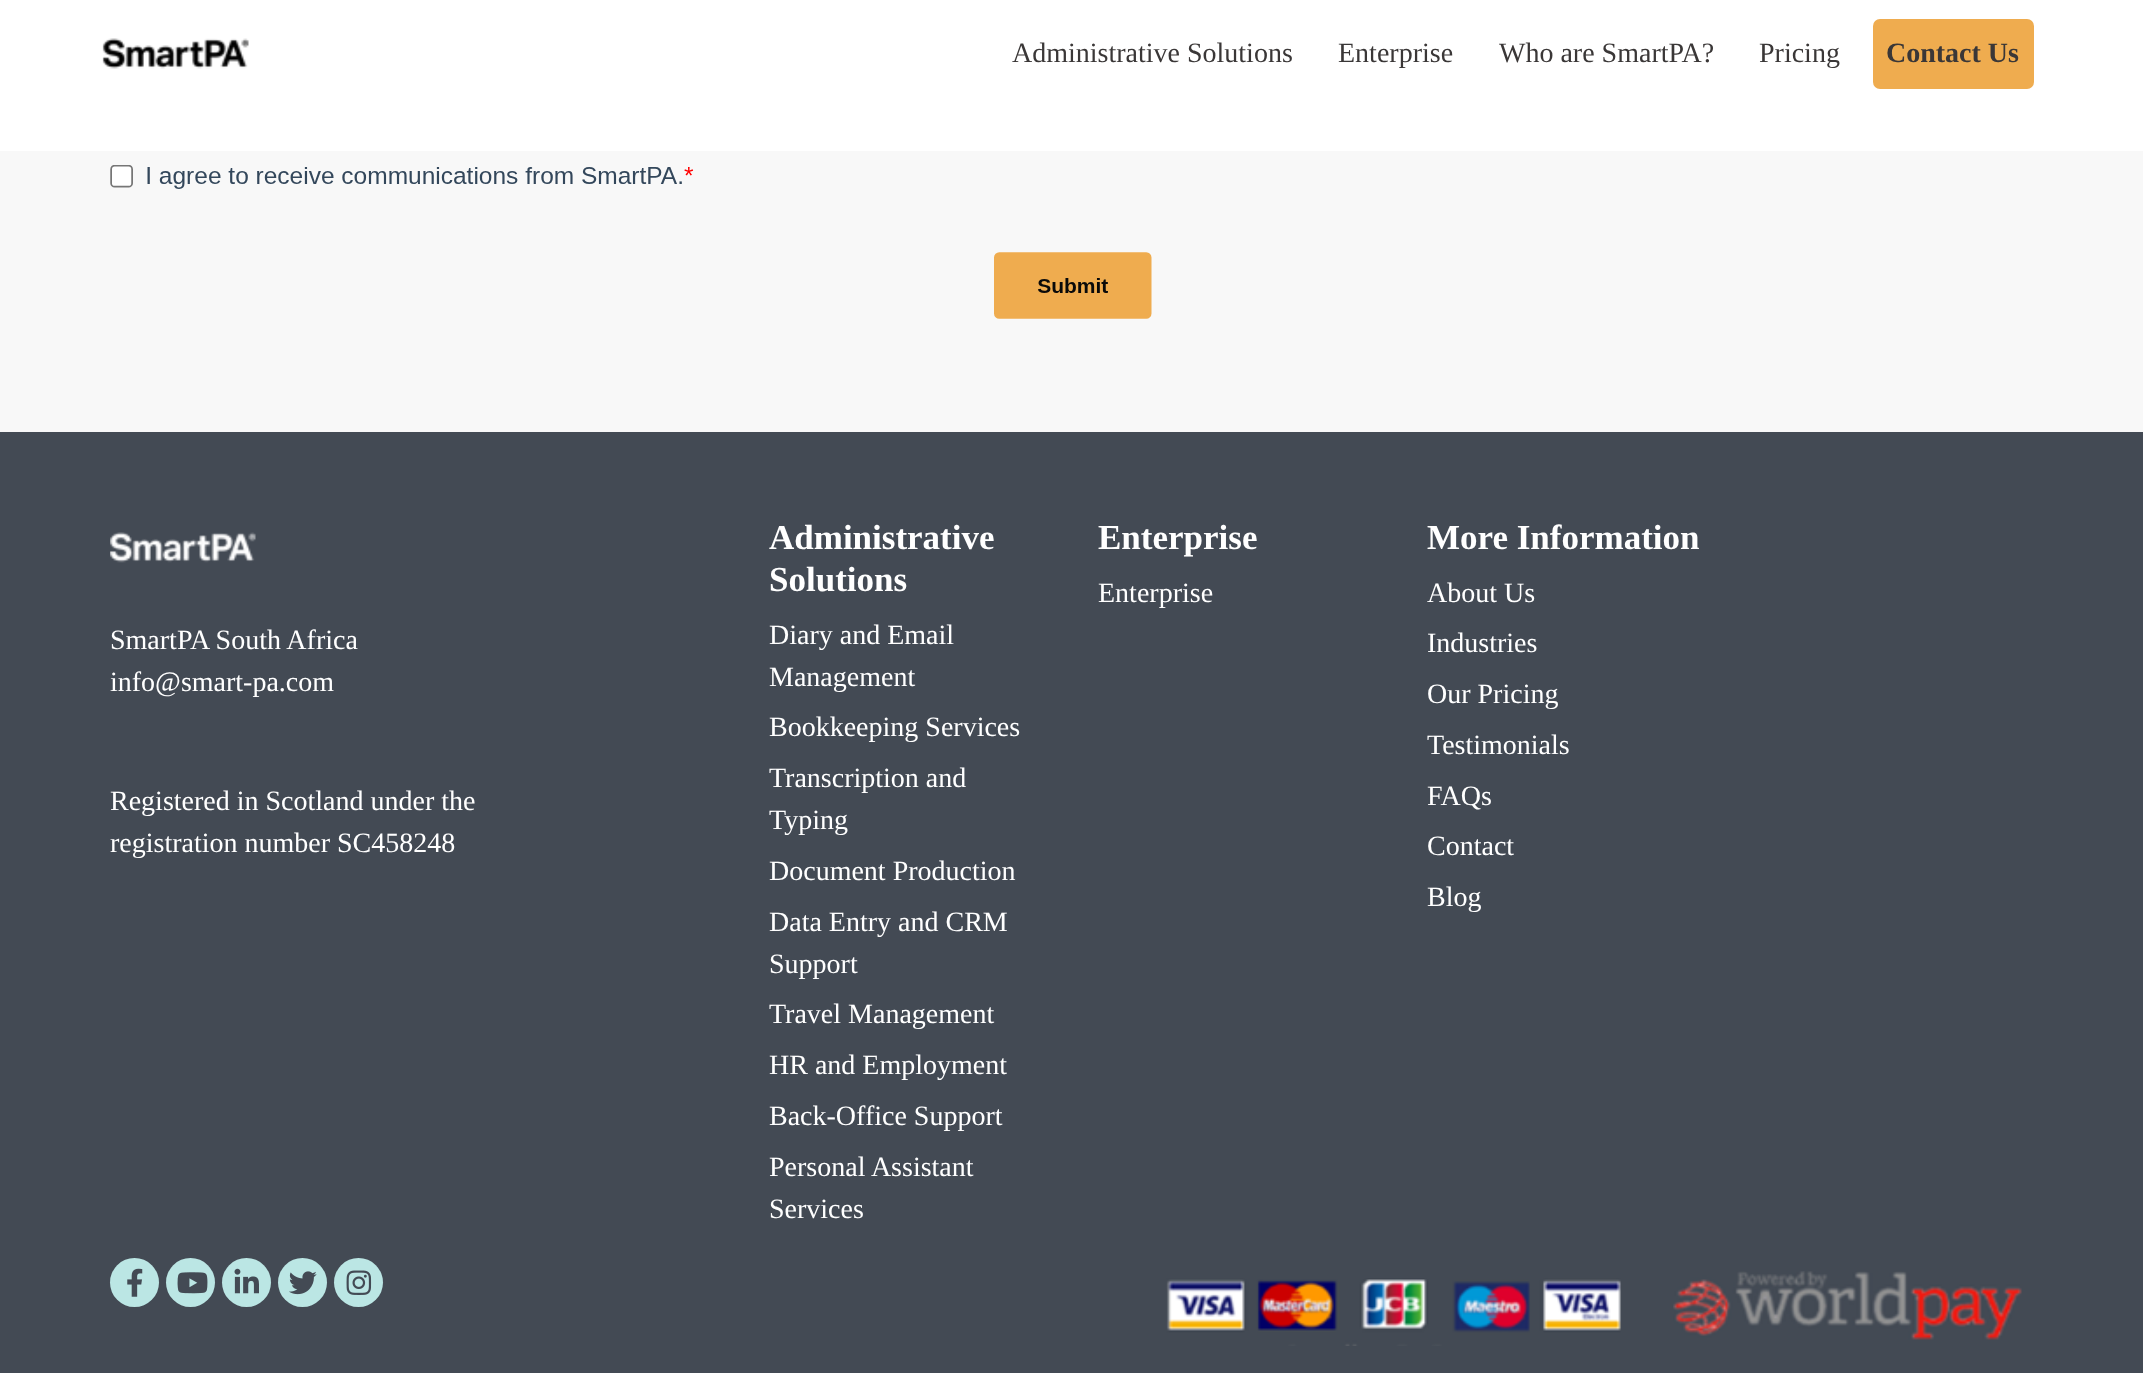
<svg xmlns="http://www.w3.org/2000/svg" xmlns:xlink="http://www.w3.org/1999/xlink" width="2143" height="1373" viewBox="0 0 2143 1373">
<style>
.cls-1{font:28px Liberation Serif;fill:#3a3737}
.cls-2{font:bold 28px Liberation Serif;fill:#3a3737}
.cls-3{font:28px Liberation Serif;fill:#ffffff}
.cls-4{font:bold 35px Liberation Serif;fill:#ffffff}
</style>
<rect width="100%" height="100%" fill="#434a54"/>
<rect fill="#ffffff" x="0" y="0" width="2143" height="151"/>
<image xlink:href="image0.png" x="102" y="38" width="147" height="31"/>
<rect fill="#efac4f" x="1873" y="19" width="161" height="70" rx="7"/>
<rect fill="#f8f8f8" x="0" y="151" width="2143" height="281"/>
<image xlink:href="image1.png" x="110" y="165" width="1042" height="154"/>
<image xlink:href="image2.png" x="110" y="532" width="146" height="31"/>
<circle fill="#bbe6e4" cx="134.5" cy="1282.5" r="24.5"/>
<image xlink:href="image3.png" x="127" y="1268" width="16" height="29"/>
<circle fill="#bbe6e4" cx="190.5" cy="1282.5" r="24.5"/>
<image xlink:href="image4.png" x="177" y="1272" width="31" height="22"/>
<circle fill="#bbe6e4" cx="246.5" cy="1282.5" r="24.5"/>
<image xlink:href="image5.png" x="234" y="1268" width="25" height="26"/>
<circle fill="#bbe6e4" cx="302.5" cy="1282.5" r="24.5"/>
<image xlink:href="image6.png" x="289" y="1271" width="28" height="24"/>
<circle fill="#bbe6e4" cx="358.5" cy="1282.5" r="24.5"/>
<image xlink:href="image7.png" x="346" y="1270" width="26" height="25"/>
<image xlink:href="image8.png" x="1166" y="1278" width="455" height="68"/>
<image xlink:href="image9.png" x="1673" y="1271" width="349" height="69"/>
<text class="cls-1" x="1012" y="62">Administrative Solutions</text>
<text class="cls-1" x="1338" y="62">Enterprise</text>
<text class="cls-1" x="1499" y="62">Who are SmartPA?</text>
<text class="cls-1" x="1759" y="62">Pricing</text>
<text class="cls-2" x="1886" y="62">Contact Us</text>
<text class="cls-3"><tspan x="110" y="649">SmartPA South Africa</tspan><tspan x="110" y="691">info@smart-pa.com</tspan></text>
<text class="cls-3"><tspan x="110" y="810">Registered in Scotland under the</tspan><tspan x="110" y="852">registration number SC458248</tspan></text>
<text class="cls-4"><tspan x="769" y="549">Administrative</tspan><tspan x="769" y="591">Solutions</tspan></text>
<text class="cls-3"><tspan x="769" y="644">Diary and Email</tspan><tspan x="769" y="686">Management</tspan><tspan x="769" y="736">Bookkeeping Services</tspan><tspan x="769" y="787">Transcription and</tspan><tspan x="769" y="829">Typing</tspan><tspan x="769" y="880">Document Production</tspan><tspan x="769" y="931">Data Entry and CRM</tspan><tspan x="769" y="973">Support</tspan><tspan x="769" y="1023">Travel Management</tspan><tspan x="769" y="1074">HR and Employment</tspan><tspan x="769" y="1125">Back-Office Support</tspan><tspan x="769" y="1176">Personal Assistant</tspan><tspan x="769" y="1218">Services</tspan></text>
<text class="cls-4" x="1098" y="549">Enterprise</text>
<text class="cls-3" x="1098" y="602">Enterprise</text>
<text class="cls-4" x="1427" y="549">More Information</text>
<text class="cls-3"><tspan x="1427" y="602">About Us</tspan><tspan x="1427" y="652">Industries</tspan><tspan x="1427" y="703">Our Pricing</tspan><tspan x="1427" y="754">Testimonials</tspan><tspan x="1427" y="805">FAQs</tspan><tspan x="1427" y="855">Contact</tspan><tspan x="1427" y="906">Blog</tspan></text>
</svg>
